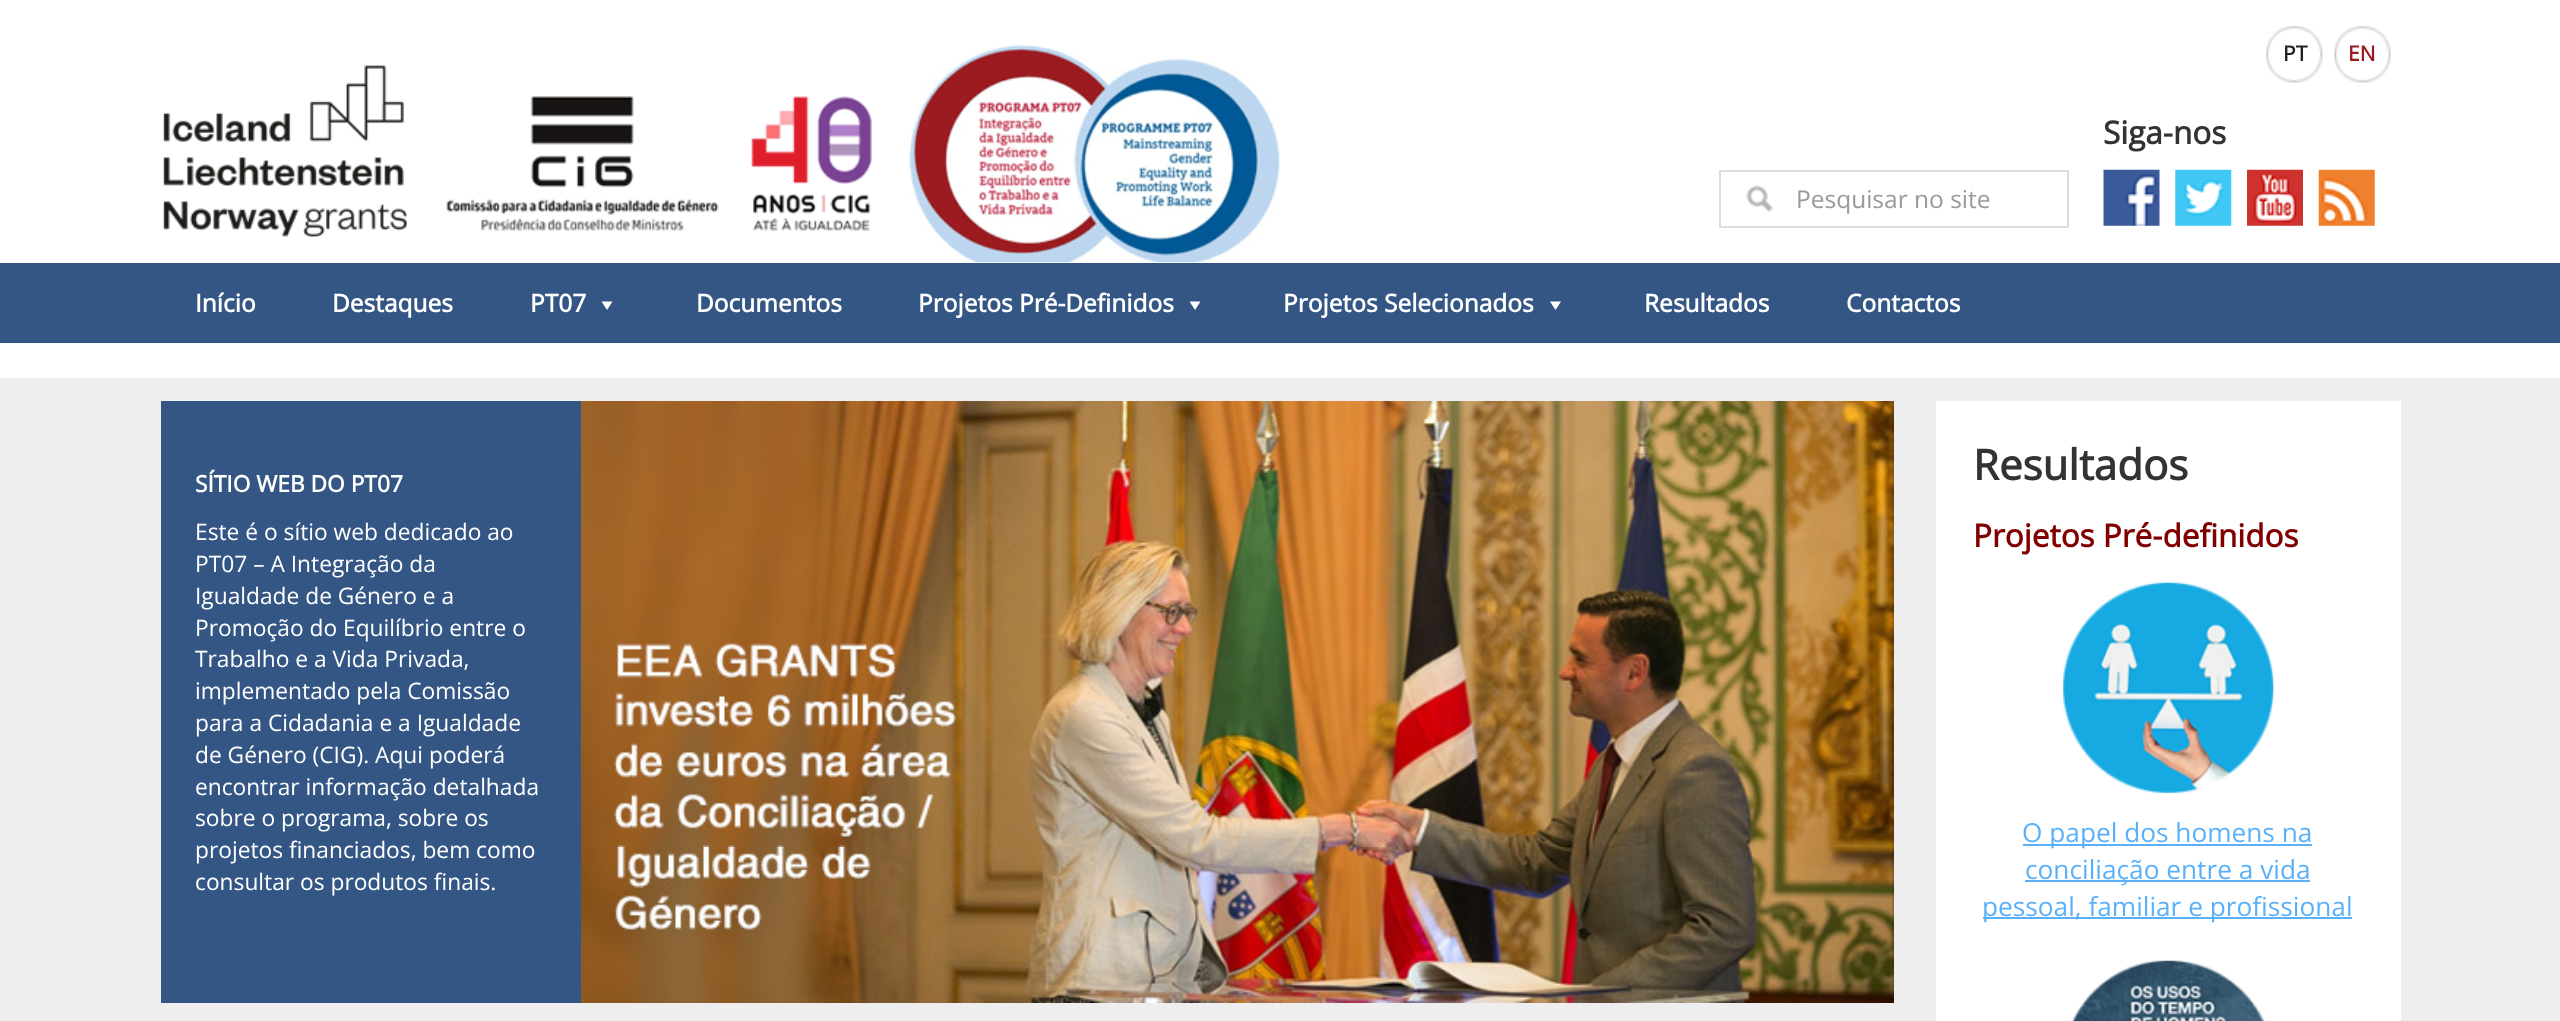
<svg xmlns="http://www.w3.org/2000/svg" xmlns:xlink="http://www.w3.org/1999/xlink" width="2560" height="1021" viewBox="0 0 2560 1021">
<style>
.cls-1{font:bold 21px Open Sans;fill:#231f20}
.cls-2{font:bold 21px Open Sans;fill:#9c1a21}
.cls-3{font:bold 31.5px Open Sans;fill:#333333}
.cls-4{font:24.5px Open Sans;fill:#999999}
.cls-5{font:bold 24.5px Open Sans;fill:#ffffff}
.cls-6{font:bold 22.75px Open Sans;fill:#ffffff}
.cls-7{font:22.75px Open Sans;fill:#ffffff}
.cls-8{font:bold 42px Open Sans;fill:#333333}
.cls-9{font:bold 31.5px Open Sans;fill:#800000}
.cls-10{font:26.25px Open Sans;fill:#5bb1f9}
</style>
<rect width="100%" height="100%" fill="#eeeeee"/>
<rect fill="#ffffff" x="0" y="0" width="2560" height="263"/>
<image xlink:href="image0.png" x="163" y="45" width="1117" height="218"/>
<image xlink:href="image1.png" x="2266" y="26" width="57" height="57"/>
<image xlink:href="image2.png" x="2334" y="26" width="57" height="57"/>
<image xlink:href="image3.png" x="2103" y="169" width="57" height="57"/>
<image xlink:href="image4.png" x="2175" y="169" width="57" height="57"/>
<image xlink:href="image5.png" x="2247" y="169" width="56" height="57"/>
<image xlink:href="image6.png" x="2318" y="169" width="57" height="57"/>
<image xlink:href="image7.png" x="1746" y="185" width="27" height="27"/>
<rect fill="none" stroke="#dddddd" stroke-width="2" x="1720" y="171" width="348" height="56"/>
<rect fill="#345684" x="0" y="263" width="2560" height="80"/>
<path fill="#ffffff" d="M612.5 301.5L607 310L601.5 301.5Z"/>
<path fill="#ffffff" d="M1200.5 301.5L1195 310L1189.5 301.5Z"/>
<path fill="#ffffff" d="M1561 301.5L1555.5 310L1550 301.5Z"/>
<rect fill="#ffffff" x="0" y="343" width="2560" height="35"/>
<rect fill="#345684" x="161" y="401" width="420" height="602"/>
<image xlink:href="image8.png" x="581" y="401" width="1313" height="602"/>
<rect fill="#ffffff" x="1936" y="401" width="465" height="620"/>
<image xlink:href="image9.png" x="2063" y="582" width="211" height="211"/>
<rect fill="#5bb1f9" x="2023" y="844" width="289" height="2"/>
<rect fill="#5bb1f9" x="2025" y="880" width="285" height="2"/>
<rect fill="#5bb1f9" x="1983" y="917" width="369" height="2"/>
<image xlink:href="image10.png" x="2071" y="960" width="194" height="61"/>
<text class="cls-1" x="2283" y="61">PT</text>
<text class="cls-2" x="2348" y="61">EN</text>
<text class="cls-3" x="2103" y="144">Siga-nos</text>
<text class="cls-4" x="1796" y="208">Pesquisar no site</text>
<text class="cls-5" x="195" y="312">Início</text>
<text class="cls-5" x="332" y="312">Destaques</text>
<text class="cls-5" x="530" y="312">PT07</text>
<text class="cls-5" x="696" y="312">Documentos</text>
<text class="cls-5" x="918" y="312">Projetos Pré-Definidos</text>
<text class="cls-5" x="1283" y="312">Projetos Selecionados</text>
<text class="cls-5" x="1644" y="312">Resultados</text>
<text class="cls-5" x="1846" y="312">Contactos</text>
<text class="cls-6" x="195" y="492">SÍTIO WEB DO PT07</text>
<text class="cls-7"><tspan x="195" y="540">Este é o sítio web dedicado ao</tspan><tspan x="195" y="572">PT07 – A Integração da</tspan><tspan x="195" y="604">Igualdade de Género e a</tspan><tspan x="195" y="636">Promoção do Equilíbrio entre o</tspan><tspan x="195" y="667">Trabalho e a Vida Privada,</tspan><tspan x="195" y="699">implementado pela Comissão</tspan><tspan x="195" y="731">para a Cidadania e a Igualdade</tspan><tspan x="195" y="763">de Género (CIG). Aqui poderá</tspan><tspan x="195" y="795">encontrar informação detalhada</tspan><tspan x="195" y="826">sobre o programa, sobre os</tspan><tspan x="195" y="858">projetos financiados, bem como</tspan><tspan x="195" y="890">consultar os produtos finais.</tspan></text>
<text class="cls-8" x="1973" y="480">Resultados</text>
<text class="cls-9" x="1973" y="547">Projetos Pré-definidos</text>
<text class="cls-10" x="2022" y="842">O papel dos homens na</text>
<text class="cls-10" x="2025" y="879">conciliação entre a vida</text>
<text class="cls-10" x="1982" y="916">pessoal, familiar e profissional</text>
</svg>
